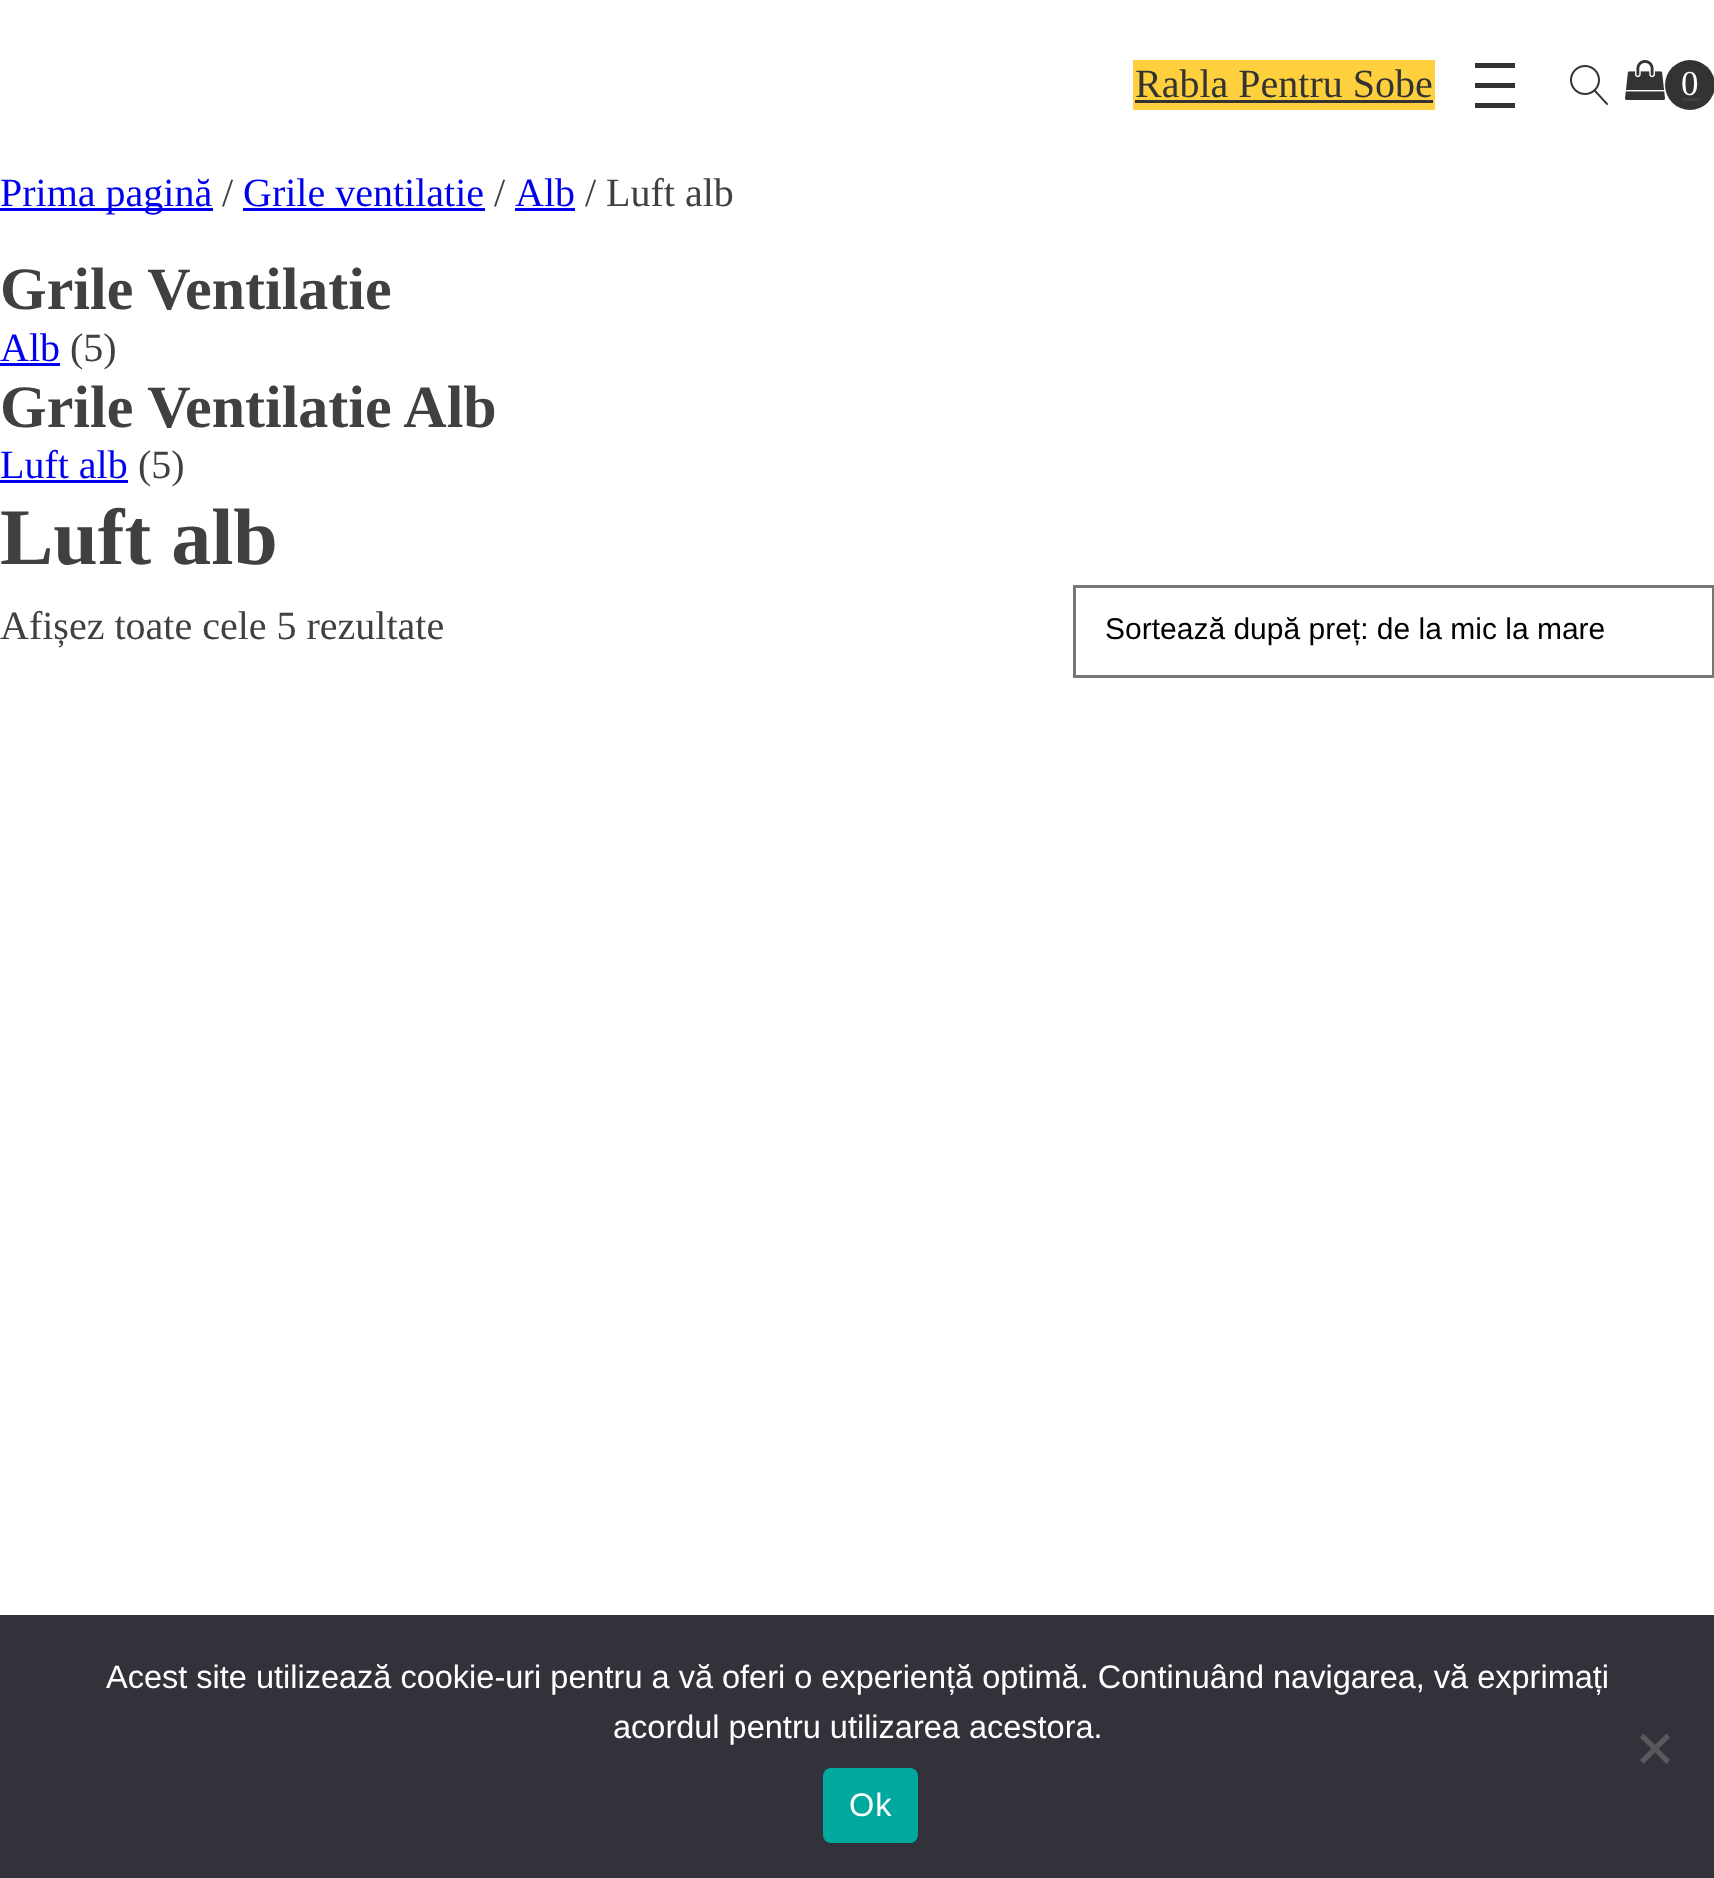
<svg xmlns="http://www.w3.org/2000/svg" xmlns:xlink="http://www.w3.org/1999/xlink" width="1714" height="1878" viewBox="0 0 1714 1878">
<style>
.cls-1{font:40px Liberation Serif;fill:#333333}
.cls-2{font:35px Liberation Serif;fill:#ffffff}
.cls-3{font:40px Liberation Serif;fill:#0000ee}
.cls-4{font:40px Liberation Serif;fill:#404040}
.cls-5{font:bold 60px Liberation Serif;fill:#404040}
.cls-6{font:bold 80px Liberation Serif;fill:#404040}
.cls-7{font:30px Liberation Sans;fill:#000000}
.cls-8{font:32.5px Liberation Sans;fill:#ffffff}
.cls-9{font:32.5px Liberation Sans;letter-spacing:1px;fill:#ffffff}
</style>
<rect width="100%" height="100%" fill="#ffffff"/>
<rect fill="#fed03d" x="1133" y="60" width="302" height="50"/>
<rect fill="#333333" x="1135" y="100" width="298" height="3"/>
<rect fill="#333333" x="1475" y="83" width="40" height="5"/>
<rect fill="#333333" x="1475" y="63" width="40" height="5"/>
<rect fill="#333333" x="1475" y="103" width="40" height="5"/>
<image xlink:href="image0.png" x="1570" y="65" width="38" height="40"/>
<image xlink:href="image1.png" x="1625" y="60" width="40" height="40"/>
<circle fill="#333333" cx="1690" cy="85" r="25"/>
<rect fill="#404040" x="1683" y="98" width="17" height="3"/>
<rect fill="#0000ee" x="0" y="208" width="213" height="3"/>
<rect fill="#0000ee" x="243" y="208" width="242" height="3"/>
<rect fill="#0000ee" x="515" y="208" width="60" height="3"/>
<rect fill="#0000ee" x="0" y="363" width="60" height="3"/>
<rect fill="#0000ee" x="0" y="480" width="128" height="3"/>
<rect fill="none" stroke="#767676" stroke-width="3" x="1074.5" y="586.5" width="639" height="90"/>
<rect fill="#32323a" x="0" y="1615" width="1714" height="263"/>
<path fill="#59595d" d="M1666.5 1733.5L1670 1737.5L1643.5 1764L1640 1760Z"/>
<path fill="#59595d" d="M1640 1737.5L1643.5 1733.5L1670 1760L1666.5 1764Z"/>
<rect fill="#00a99d" x="823" y="1768" width="95" height="75" rx="8"/>
<text class="cls-1" x="1135" y="97">Rabla Pentru Sobe</text>
<text class="cls-2" x="1681" y="95">0</text>
<text class="cls-3" x="0" y="206">Prima pagină</text>
<text class="cls-4" x="222" y="206">/</text>
<text class="cls-3" x="243" y="206">Grile ventilatie</text>
<text class="cls-4" x="494" y="206">/</text>
<text class="cls-3" x="515" y="206">Alb</text>
<text class="cls-4" x="585" y="206">/ Luft alb</text>
<text class="cls-5" x="0" y="309">Grile Ventilatie</text>
<text class="cls-3" x="0" y="361">Alb</text>
<text class="cls-4" x="70" y="361">(5)</text>
<text class="cls-5" x="0" y="427">Grile Ventilatie Alb</text>
<text class="cls-3" x="0" y="478">Luft alb</text>
<text class="cls-4" x="138" y="478">(5)</text>
<text class="cls-6" x="0" y="564">Luft alb</text>
<text class="cls-4" x="0" y="639">Afișez toate cele 5 rezultate</text>
<text class="cls-7" x="1105" y="639">Sortează după preț: de la mic la mare</text>
<text class="cls-8" x="106" y="1688">Acest site utilizează cookie-uri pentru a vă oferi o experiență optimă. Continuând navigarea, vă exprimați</text>
<text class="cls-8" x="613" y="1738">acordul pentru utilizarea acestora.</text>
<text class="cls-9" x="849" y="1816">Ok</text>
</svg>
